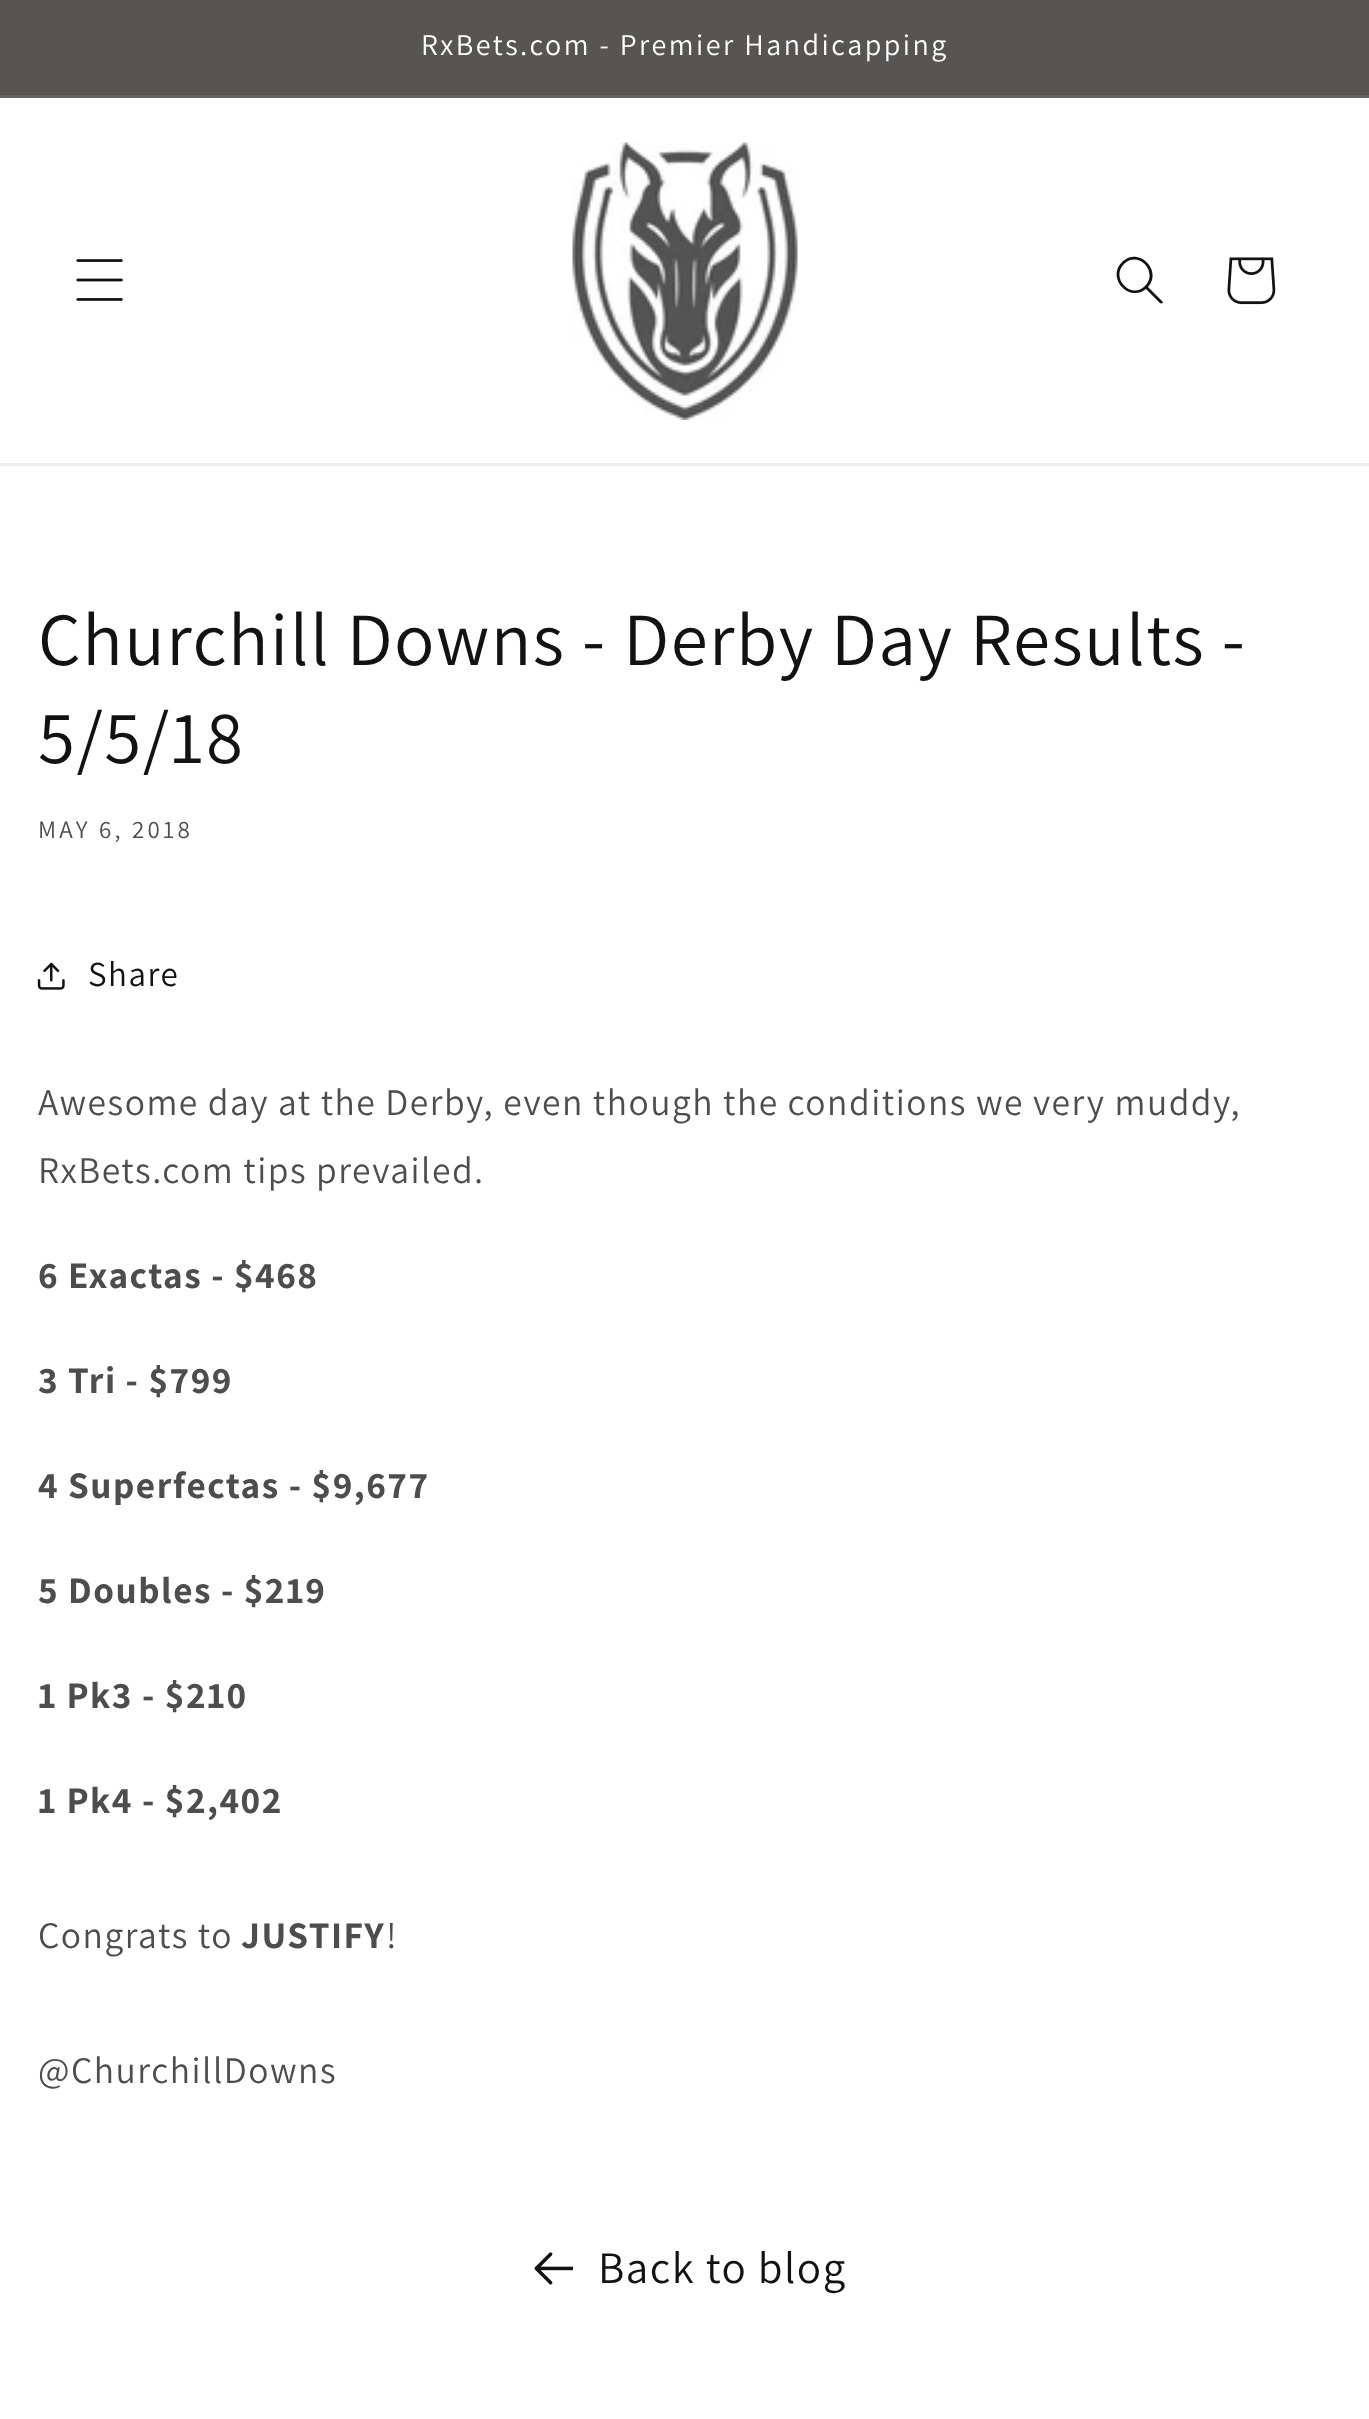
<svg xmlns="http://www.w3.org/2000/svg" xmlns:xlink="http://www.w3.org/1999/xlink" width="1369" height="2419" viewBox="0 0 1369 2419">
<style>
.cls-1{font:30px Assistant;letter-spacing:2.5px;fill:#ffffff}
.cls-2{font:75px Assistant;letter-spacing:1.5px;fill:#121212}
.cls-3{font:25px Assistant;letter-spacing:3.25px;fill:#4d4d4d}
.cls-4{font:35px Assistant;letter-spacing:1.5px;fill:#121212}
.cls-5{font:37.5px Assistant;letter-spacing:1.5px;fill:#4d4d4d}
.cls-6{font:bold 37.5px Assistant;letter-spacing:1.5px;fill:#4d4d4d}
.cls-7{font:45px Assistant;letter-spacing:1.5px;fill:#121212}
</style>
<rect width="100%" height="100%" fill="#ffffff"/>
<rect fill="#575554" x="0" y="0" width="1369" height="95"/>
<rect fill="#646362" x="0" y="95" width="1369" height="3"/>
<rect fill="#ececec" x="0" y="463" width="1369" height="3"/>
<image xlink:href="image0.png" x="76" y="259" width="47" height="42"/>
<image xlink:href="image1.png" x="572" y="142" width="226" height="278"/>
<path fill="#121212" fill-rule="evenodd" d="M1145 286C1131 300 1110 278 1124 264C1138 250 1159 272 1145 286M1146 289C1129 303 1106 278 1122 262C1138 246 1163 270 1148 287L1163 302C1163 303 1161 304 1160 303Z"/>
<image xlink:href="image2.png" x="1227" y="257" width="49" height="48"/>
<image xlink:href="image3.png" x="37" y="962" width="28" height="28"/>
<image xlink:href="image4.png" x="534" y="2252" width="39" height="33"/>
<text class="cls-1" x="421" y="55">RxBets.com - Premier Handicapping</text>
<text class="cls-2"><tspan x="38" y="665">Churchill Downs - Derby Day Results -</tspan><tspan x="38" y="763">5/5/18</tspan></text>
<text class="cls-3" x="38" y="838">MAY 6, 2018</text>
<text class="cls-4" x="88" y="986">Share</text>
<text class="cls-5"><tspan x="38" y="1115">Awesome day at the Derby, even though the conditions we very muddy,</tspan><tspan x="38" y="1183">RxBets.com tips prevailed.</tspan></text>
<text class="cls-6" x="38" y="1288">6 Exactas - $468</text>
<text class="cls-6" x="38" y="1393">3 Tri - $799</text>
<text class="cls-6" x="38" y="1498">4 Superfectas - $9,677</text>
<text class="cls-6" x="38" y="1603">5 Doubles - $219</text>
<text class="cls-6" x="38" y="1708">1 Pk3 - $210</text>
<text class="cls-6" x="38" y="1813">1 Pk4 - $2,402</text>
<text class="cls-5" x="38" y="1948">Congrats to</text>
<text class="cls-6" x="241" y="1948">JUSTIFY</text>
<text class="cls-5" x="386" y="1948">!</text>
<text class="cls-5" x="38" y="2083">@ChurchillDowns</text>
<text class="cls-7" x="598" y="2283">Back to blog</text>
</svg>
